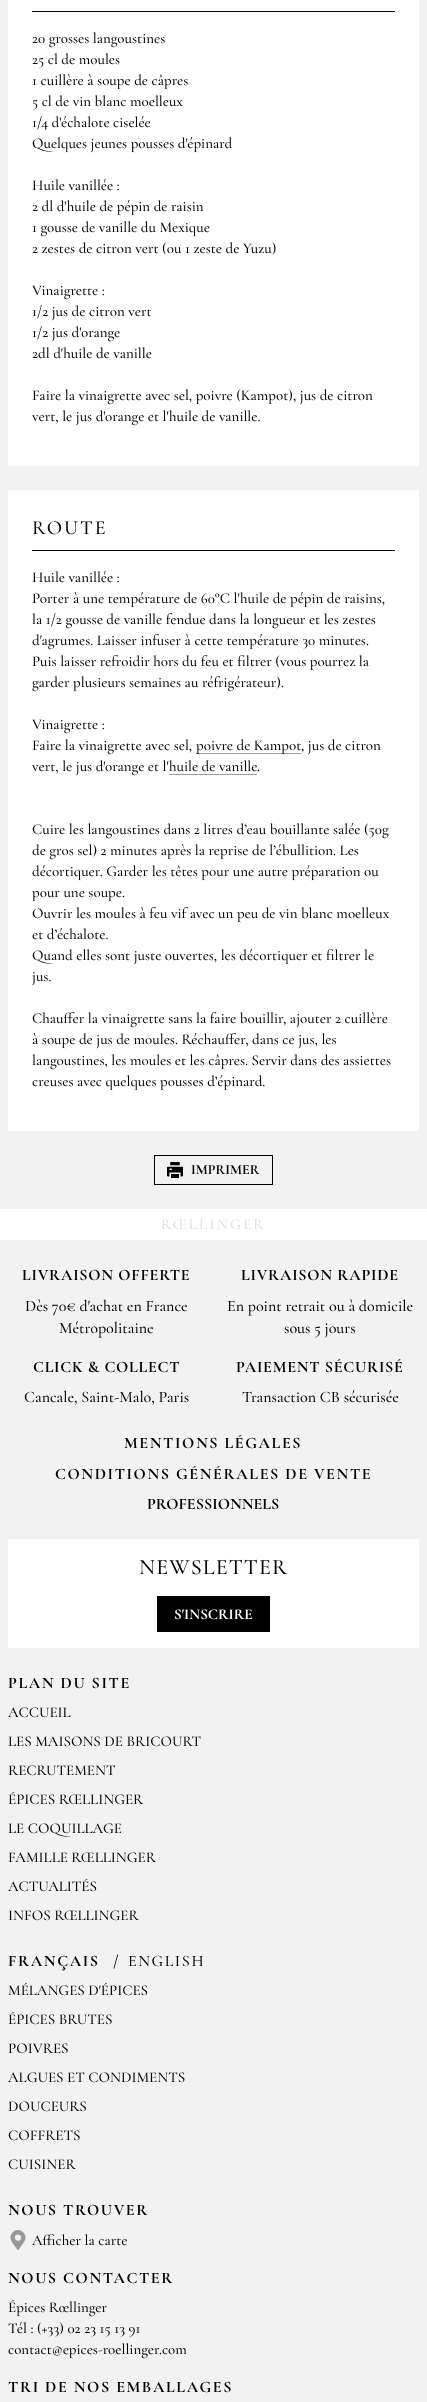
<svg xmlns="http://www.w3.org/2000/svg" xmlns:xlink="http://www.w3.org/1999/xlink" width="427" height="2402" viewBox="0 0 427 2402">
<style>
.cls-1{font:500 15px Cormorant Garamond;fill:#000000}
.cls-2{font:500 20px Cormorant Garamond;letter-spacing:2px;fill:#000000}
.cls-3{font:bold 14px Cormorant Garamond;fill:#000000}
.cls-4{font:500 15px Cormorant Garamond;letter-spacing:2.25px;fill:#dfdfdf}
.cls-5{font:bold 16px Cormorant Garamond;letter-spacing:0.75px;fill:#000000}
.cls-6{font:500 16px Cormorant Garamond;fill:#000000}
.cls-7{font:bold 16px Cormorant Garamond;letter-spacing:1.6px;fill:#000000}
.cls-8{font:bold 16px Cormorant Garamond;fill:#000000}
.cls-9{font:500 22px Cormorant Garamond;letter-spacing:1.1px;fill:#000000}
.cls-10{font:bold 15px Cormorant Garamond;fill:#ffffff}
.cls-11{font:500 16px Cormorant Garamond;letter-spacing:1.6px;fill:#000000}
</style>
<rect width="100%" height="100%" fill="#f2f2f2"/>
<rect fill="#ffffff" x="8" y="0" width="411" height="466"/>
<rect fill="#000000" x="32" y="11" width="363" height="1"/>
<rect fill="#ffffff" x="8" y="490" width="411" height="641"/>
<rect fill="#000000" x="32" y="550" width="363" height="1"/>
<rect fill="#9b9b9b" x="196" y="753" width="105" height="1"/>
<rect fill="none" stroke="#000000" x="154.5" y="1155.5" width="118" height="29"/>
<image xlink:href="image0.png" x="167" y="1162" width="16" height="16"/>
<rect fill="#ffffff" x="0" y="1209" width="427" height="31"/>
<rect fill="#ffffff" x="8" y="1539" width="411" height="109"/>
<rect fill="#000000" x="157" y="1596" width="113" height="36"/>
<image xlink:href="image1.png" x="10" y="2230" width="16" height="20"/>
<text class="cls-1"><tspan x="32" y="43">20 grosses langoustines</tspan><tspan x="32" y="64">25 cl de moules</tspan><tspan x="32" y="85">1 cuillère à soupe de câpres</tspan><tspan x="32" y="106">5 cl de vin blanc moelleux</tspan><tspan x="32" y="127">1/4 d'échalote ciselée</tspan><tspan x="32" y="148">Quelques jeunes pousses d'épinard</tspan></text>
<text class="cls-1"><tspan x="32" y="190">Huile vanillée :</tspan><tspan x="32" y="211">2 dl d'huile de pépin de raisin</tspan><tspan x="32" y="232">1 gousse de vanille du Mexique</tspan><tspan x="32" y="253">2 zestes de citron vert (ou 1 zeste de Yuzu)</tspan></text>
<text class="cls-1"><tspan x="32" y="295">Vinaigrette :</tspan><tspan x="32" y="316">1/2 jus de citron vert</tspan><tspan x="32" y="337">1/2 jus d'orange</tspan><tspan x="32" y="358">2dl d'huile de vanille</tspan></text>
<text class="cls-1"><tspan x="32" y="400">Faire la vinaigrette avec sel, poivre (Kampot), jus de citron</tspan><tspan x="32" y="421">vert, le jus d'orange et l'huile de vanille.</tspan></text>
<text class="cls-2" x="32" y="534">ROUTE</text>
<text class="cls-1"><tspan x="32" y="582">Huile vanillée :</tspan><tspan x="32" y="603">Porter à une température de 60°C l'huile de pépin de raisins,</tspan><tspan x="32" y="624">la 1/2 gousse de vanille fendue dans la longueur et les zestes</tspan><tspan x="32" y="645">d'agrumes. Laisser infuser à cette température 30 minutes.</tspan><tspan x="32" y="666">Puis laisser refroidir hors du feu et filtrer (vous pourrez la</tspan><tspan x="32" y="687">garder plusieurs semaines au réfrigérateur).</tspan></text>
<text class="cls-1"><tspan x="32" y="729">Vinaigrette :</tspan><tspan x="32" y="750">Faire la vinaigrette avec sel,</tspan></text>
<text class="cls-1" x="196" y="750">poivre de Kampot</text>
<text class="cls-1" x="301" y="750">, jus de citron</text>
<text class="cls-1" x="32" y="771">vert, le jus d'orange et l'huile de vanille</text>
<text class="cls-1" x="257" y="771">.</text>
<rect fill="#9b9b9b" x="169" y="774" width="88" height="1"/>
<text class="cls-1"><tspan x="32" y="834">Cuire les langoustines dans 2 litres d’eau bouillante salée (50g</tspan><tspan x="32" y="855">de gros sel) 2 minutes après la reprise de l’ébullition. Les</tspan><tspan x="32" y="876">décortiquer. Garder les têtes pour une autre préparation ou</tspan><tspan x="32" y="897">pour une soupe.</tspan><tspan x="32" y="918">Ouvrir les moules à feu vif avec un peu de vin blanc moelleux</tspan><tspan x="32" y="939">et d’échalote.</tspan><tspan x="32" y="960">Quand elles sont juste ouvertes, les décortiquer et filtrer le</tspan><tspan x="32" y="981">jus.</tspan></text>
<text class="cls-1"><tspan x="32" y="1023">Chauffer la vinaigrette sans la faire bouillir, ajouter 2 cuillère</tspan><tspan x="32" y="1044">à soupe de jus de moules. Réchauffer, dans ce jus, les</tspan><tspan x="32" y="1065">langoustines, les moules et les câpres. Servir dans des assiettes</tspan><tspan x="32" y="1086">creuses avec quelques pousses d’épinard.</tspan></text>
<text class="cls-3" x="191" y="1174">IMPRIMER</text>
<text class="cls-4" x="161" y="1229">RŒLLINGER</text>
<text class="cls-5" x="22" y="1280">LIVRAISON OFFERTE</text>
<text class="cls-6" x="25" y="1311">Dès 70€ d'achat en France</text>
<text class="cls-6" x="59" y="1333">Métropolitaine</text>
<text class="cls-5" x="241" y="1280">LIVRAISON RAPIDE</text>
<text class="cls-6" x="227" y="1311">En point retrait ou à domicile</text>
<text class="cls-6" x="284" y="1333">sous 5 jours</text>
<text class="cls-5" x="33" y="1372">CLICK &amp; COLLECT</text>
<text class="cls-6" x="24" y="1402">Cancale, Saint-Malo, Paris</text>
<text class="cls-5" x="236" y="1372">PAIEMENT SÉCURISÉ</text>
<text class="cls-6" x="242" y="1402">Transaction CB sécurisée</text>
<text class="cls-7" x="124" y="1448">MENTIONS LÉGALES</text>
<text class="cls-7" x="55" y="1479">CONDITIONS GÉNÉRALES DE VENTE</text>
<text class="cls-8" x="147" y="1509">PROFESSIONNELS</text>
<text class="cls-9" x="139" y="1574">NEWSLETTER</text>
<text class="cls-10" x="174" y="1619">S'INSCRIRE</text>
<text class="cls-7" x="8" y="1688">PLAN DU SITE</text>
<text class="cls-1"><tspan x="8" y="1717">ACCUEIL</tspan><tspan x="8" y="1746">LES MAISONS DE BRICOURT</tspan><tspan x="8" y="1775">RECRUTEMENT</tspan><tspan x="8" y="1804">ÉPICES RŒLLINGER</tspan><tspan x="8" y="1833">LE COQUILLAGE</tspan><tspan x="8" y="1862">FAMILLE RŒLLINGER</tspan><tspan x="8" y="1891">ACTUALITÉS</tspan><tspan x="8" y="1920">INFOS RŒLLINGER</tspan></text>
<text class="cls-7" x="8" y="1966">FRANÇAIS</text>
<text class="cls-7" x="113" y="1966">/</text>
<text class="cls-11" x="128" y="1966">ENGLISH</text>
<text class="cls-1"><tspan x="8" y="1995">MÉLANGES D'ÉPICES</tspan><tspan x="8" y="2024">ÉPICES BRUTES</tspan><tspan x="8" y="2053">POIVRES</tspan><tspan x="8" y="2082">ALGUES ET CONDIMENTS</tspan><tspan x="8" y="2111">DOUCEURS</tspan><tspan x="8" y="2140">COFFRETS</tspan><tspan x="8" y="2169">CUISINER</tspan></text>
<text class="cls-7" x="8" y="2215">NOUS TROUVER</text>
<text class="cls-1" x="32" y="2245">Afficher la carte</text>
<text class="cls-7" x="8" y="2283">NOUS CONTACTER</text>
<text class="cls-1"><tspan x="8" y="2312">Épices Rœllinger</tspan><tspan x="8" y="2333">Tél : (+33) 02 23 15 13 91</tspan><tspan x="8" y="2354">contact@epices-roellinger.com</tspan></text>
<text class="cls-7" x="8" y="2392">TRI DE NOS EMBALLAGES</text>
</svg>
